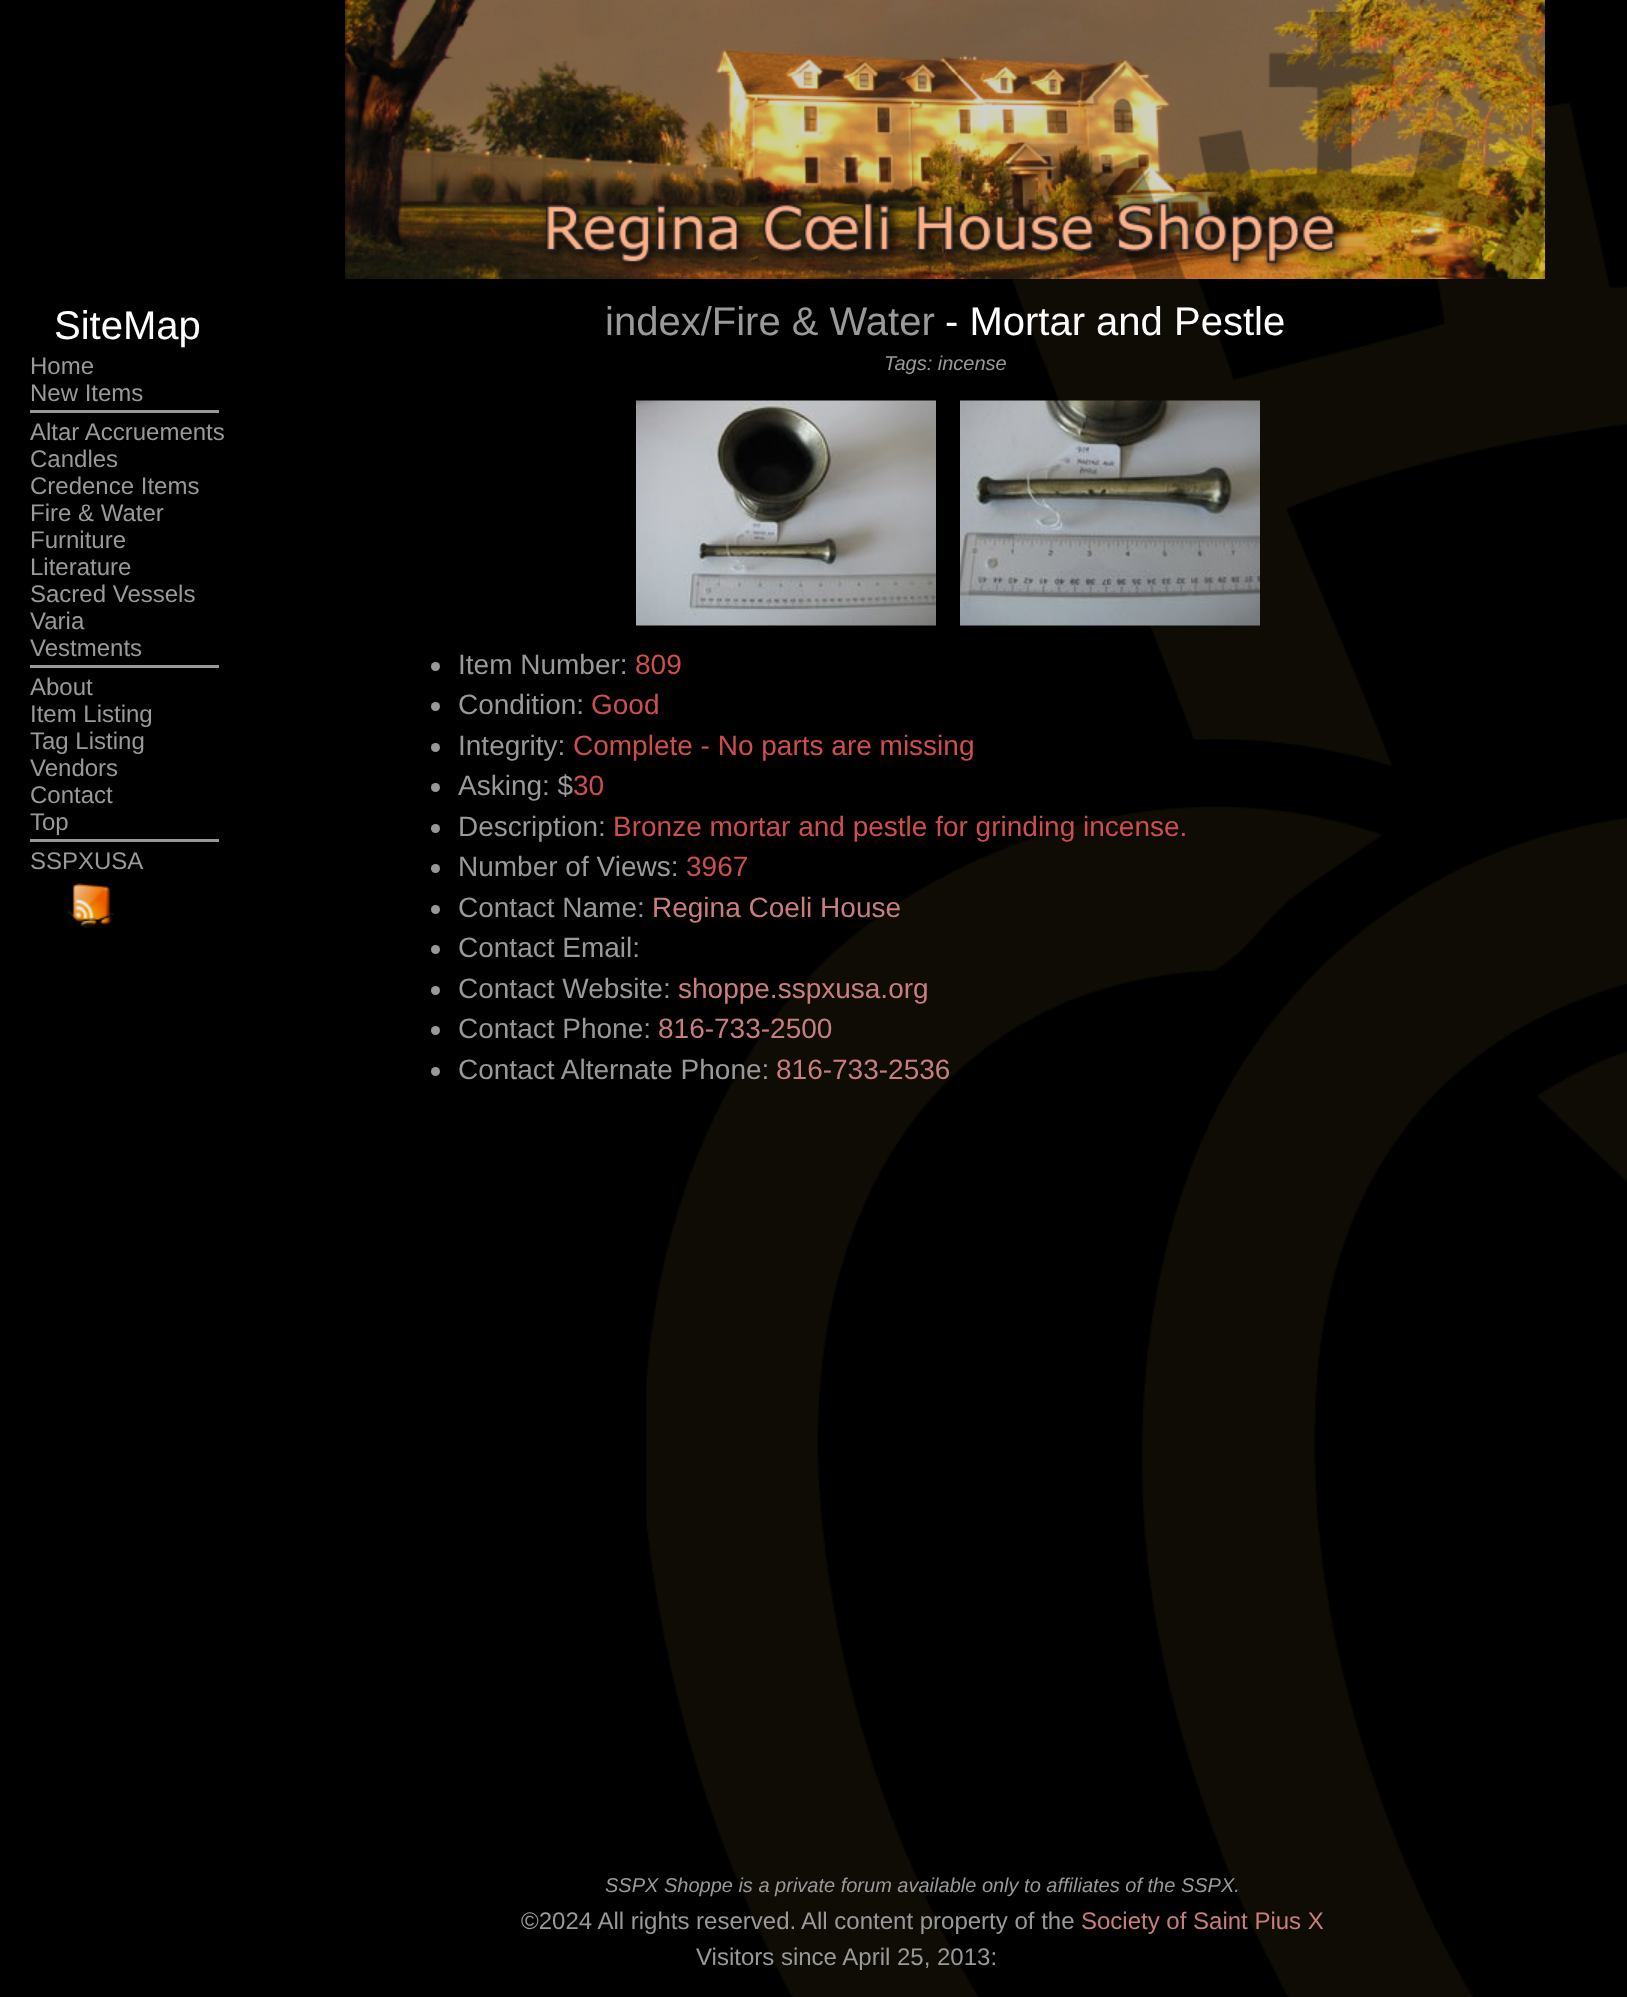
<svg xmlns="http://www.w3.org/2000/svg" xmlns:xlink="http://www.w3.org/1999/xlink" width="1627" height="1997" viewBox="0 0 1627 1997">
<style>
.cls-1{font:40px Liberation Sans;fill:#ffffff}
.cls-2{font:24px Liberation Sans;fill:#999999}
.cls-3{font:40px Liberation Sans;fill:#999999}
.cls-4{font:italic 20px Liberation Sans;fill:#999999}
.cls-5{font:28px Liberation Sans;fill:#999999}
.cls-6{font:28px Liberation Sans;fill:#ce4e4e}
.cls-7{font:28px Liberation Sans;fill:#c97e7e}
.cls-8{font:24px Liberation Sans;fill:#c97e7e}
</style>
<rect width="100%" height="100%" fill="#000000"/>
<image xlink:href="image0.png" x="646" y="103" width="981" height="1894"/>
<image xlink:href="image1.png" x="345" y="0" width="1200" height="279"/>
<rect fill="#999999" x="30" y="410" width="189" height="3"/>
<rect fill="#999999" x="30" y="665" width="189" height="3"/>
<rect fill="#999999" x="30" y="839" width="189" height="3"/>
<image xlink:href="image2.png" x="67" y="883" width="47" height="46"/>
<image xlink:href="image3.png" x="636" y="400" width="300" height="226"/>
<image xlink:href="image4.png" x="960" y="400" width="300" height="226"/>
<circle fill="#999999" cx="435.5" cy="666.5" r="4.5"/>
<circle fill="#999999" cx="435.5" cy="706.5" r="4.5"/>
<circle fill="#999999" cx="435.5" cy="747.5" r="4.5"/>
<circle fill="#999999" cx="435.5" cy="787.5" r="4.5"/>
<circle fill="#999999" cx="435.5" cy="828.5" r="4.5"/>
<circle fill="#999999" cx="435.5" cy="868.5" r="4.5"/>
<circle fill="#999999" cx="435.5" cy="909.5" r="4.5"/>
<circle fill="#999999" cx="435.5" cy="949.5" r="4.5"/>
<circle fill="#999999" cx="435.5" cy="990.5" r="4.5"/>
<circle fill="#999999" cx="435.5" cy="1030.5" r="4.5"/>
<circle fill="#999999" cx="435.5" cy="1071.5" r="4.5"/>
<text class="cls-1" x="54" y="339">SiteMap</text>
<text class="cls-2"><tspan x="30" y="374">Home</tspan><tspan x="30" y="401">New Items</tspan><tspan x="30" y="440">Altar Accruements</tspan><tspan x="30" y="467">Candles</tspan><tspan x="30" y="494">Credence Items</tspan><tspan x="30" y="521">Fire &amp; Water</tspan><tspan x="30" y="548">Furniture</tspan><tspan x="30" y="575">Literature</tspan><tspan x="30" y="602">Sacred Vessels</tspan><tspan x="30" y="629">Varia</tspan><tspan x="30" y="656">Vestments</tspan><tspan x="30" y="695">About</tspan><tspan x="30" y="722">Item Listing</tspan><tspan x="30" y="749">Tag Listing</tspan><tspan x="30" y="776">Vendors</tspan><tspan x="30" y="803">Contact</tspan><tspan x="30" y="830">Top</tspan><tspan x="30" y="869">SSPXUSA</tspan></text>
<text class="cls-3" x="605" y="335">index/Fire &amp; Water</text>
<text class="cls-1" x="945" y="335">- Mortar and Pestle</text>
<text class="cls-4" x="884" y="370">Tags: incense</text>
<text class="cls-5" x="458" y="674">Item Number:</text>
<text class="cls-6" x="635" y="674">809</text>
<text class="cls-5" x="458" y="714">Condition:</text>
<text class="cls-6" x="591" y="714">Good</text>
<text class="cls-5" x="458" y="755">Integrity:</text>
<text class="cls-6" x="573" y="755">Complete - No parts are missing</text>
<text class="cls-5" x="458" y="795">Asking: $</text>
<text class="cls-6" x="573" y="795">30</text>
<text class="cls-5" x="458" y="836">Description:</text>
<text class="cls-6" x="613" y="836">Bronze mortar and pestle for grinding incense.</text>
<text class="cls-5" x="458" y="876">Number of Views:</text>
<text class="cls-6" x="686" y="876">3967</text>
<text class="cls-5" x="458" y="917">Contact Name:</text>
<text class="cls-7" x="652" y="917">Regina Coeli House</text>
<text class="cls-5"><tspan x="458" y="957">Contact Email:</tspan><tspan x="458" y="998">Contact Website:</tspan></text>
<text class="cls-7" x="678" y="998">shoppe.sspxusa.org</text>
<text class="cls-5" x="458" y="1038">Contact Phone:</text>
<text class="cls-7" x="658" y="1038">816-733-2500</text>
<text class="cls-5" x="458" y="1079">Contact Alternate Phone:</text>
<text class="cls-7" x="776" y="1079">816-733-2536</text>
<text class="cls-4" x="605" y="1892">SSPX Shoppe is a private forum available only to affiliates of the SSPX.</text>
<text class="cls-2" x="521" y="1929">©2024 All rights reserved.</text>
<text class="cls-2" x="801" y="1929">All content property of the</text>
<text class="cls-8" x="1081" y="1929">Society of Saint Pius X</text>
<text class="cls-2" x="696" y="1965">Visitors since April 25, 2013:</text>
</svg>
